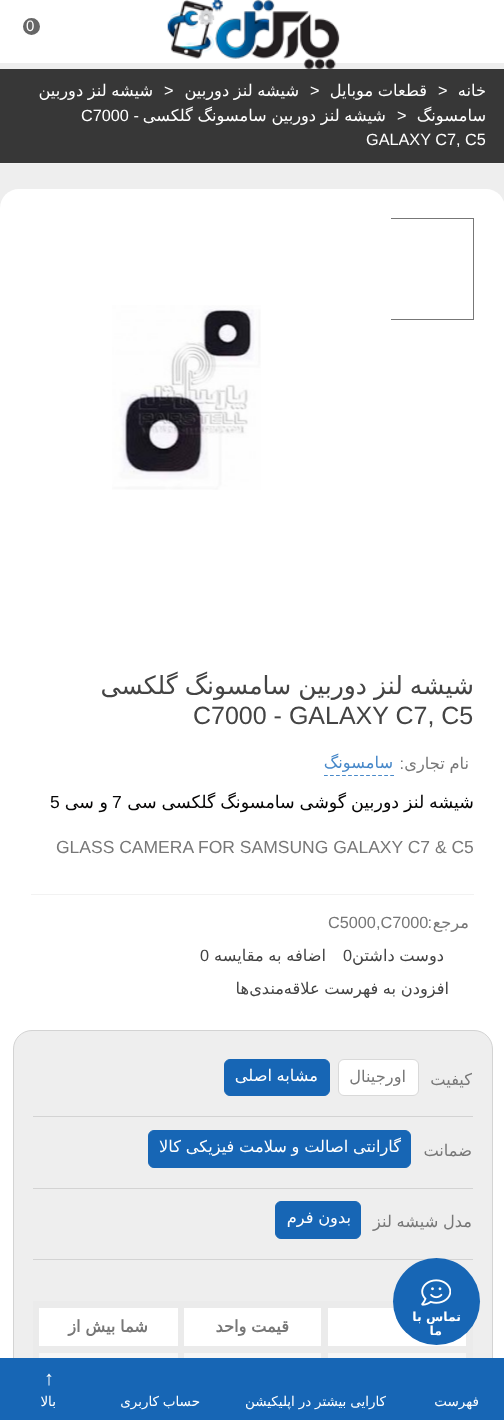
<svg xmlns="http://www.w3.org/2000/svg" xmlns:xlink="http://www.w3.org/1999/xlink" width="504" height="1420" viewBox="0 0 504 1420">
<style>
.cls-1{font:15px Liberation Sans;fill:#ffffff}
.cls-2{font:16.25px DejaVu Sans;direction:rtl;fill:#ffffff}
.cls-3{font:16.25px Liberation Sans;fill:#ffffff}
.cls-4{font:25px DejaVu Sans;direction:rtl;fill:#444444}
.cls-5{font:25px Liberation Sans;fill:#444444}
.cls-6{font:16.25px DejaVu Sans;direction:rtl;fill:#777777}
.cls-7{font:16.25px Liberation Sans;direction:rtl;fill:#777777}
.cls-8{font:16.25px DejaVu Sans;direction:rtl;fill:#4788c9}
.cls-9{font:17.5px DejaVu Sans;direction:rtl;fill:#050404}
.cls-10{font:17.5px Liberation Sans;fill:#050404}
.cls-11{font:17.5px Liberation Sans;fill:#777777}
.cls-12{font:16.25px Liberation Sans;fill:#777777}
.cls-13{font:16.25px DejaVu Sans;direction:rtl;fill:#444444}
.cls-14{font:16.25px Liberation Sans;fill:#444444}
.cls-15{font:bold 16.25px DejaVu Sans;direction:rtl;fill:#777777}
.cls-16{font:bold 12.5px 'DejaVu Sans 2';direction:rtl;fill:#ffffff}
.cls-17{font:13.5px DejaVu Sans;direction:rtl;fill:#ffffff}
.cls-18{font:20px Liberation Serif;fill:#ffffff}
</style>
<defs>
<clipPath id="clip1"><rect x="391" y="201" width="83" height="450"/></clipPath>
<clipPath id="clip2"><rect x="31" y="784" width="443" height="90"/></clipPath>
</defs>
<rect width="100%" height="100%" fill="#eeeeee"/>
<rect fill="#ffffff" x="0" y="0" width="504" height="63"/>
<image xlink:href="image0.png" x="167" y="0" width="173" height="69"/>
<circle fill="#666666" stroke="#ffffff" stroke-width="3" cx="31.5" cy="26.5" r="10"/>
<rect fill="#373737" x="0" y="69" width="504" height="94"/>
<rect fill="#f2f2f2" x="0" y="163" width="504" height="1"/>
<rect fill="#ffffff" x="0" y="189" width="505" height="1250" rx="19"/>
<g clip-path="url(#clip1)">
<rect fill="none" stroke="#777777" x="384.5" y="218.5" width="89" height="101"/>
</g>
<image xlink:href="image1.png" x="112" y="305" width="149" height="185"/>
<path fill="none" stroke="#4788c9" stroke-width="1.2" stroke-dasharray="3.75 2.27" d="M324 775.5H394"/>
<rect fill="#f2f2f2" x="31" y="894" width="443" height="1"/>
<rect fill="#eeeeee" stroke="#d3d3d3" x="13.5" y="1030.5" width="479" height="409" rx="18.5"/>
<rect fill="#d3d3d3" x="33" y="1116" width="440" height="1"/>
<rect fill="#ffffff" stroke="#d9d9d9" x="338.5" y="1059.5" width="80" height="36" rx="5.5"/>
<rect fill="#1766b5" stroke="#1766b5" x="224.5" y="1059.5" width="105" height="36" rx="5.5"/>
<rect fill="#d3d3d3" x="33" y="1188" width="440" height="1"/>
<rect fill="#1766b5" stroke="#1766b5" x="148.5" y="1130.5" width="262" height="37" rx="5.5"/>
<rect fill="#d3d3d3" x="33" y="1259" width="440" height="1"/>
<rect fill="#1766b5" stroke="#1766b5" x="275.5" y="1201.5" width="85" height="37" rx="5.5"/>
<rect fill="#ffffff" x="328" y="1308" width="138" height="38"/>
<rect fill="#ebebeb" x="33" y="1301" width="151" height="7"/>
<rect fill="#ebebeb" x="33" y="1346" width="151" height="7"/>
<rect fill="#f6f6f6" x="39" y="1353" width="427" height="5"/>
<rect fill="#ebebeb" x="178" y="1346" width="6" height="12"/>
<rect fill="#ebebeb" x="178" y="1346" width="150" height="7"/>
<rect fill="#ebebeb" x="178" y="1301" width="6" height="52"/>
<rect fill="#ebebeb" x="178" y="1301" width="150" height="7"/>
<rect fill="#ebebeb" x="321" y="1346" width="7" height="12"/>
<rect fill="#ebebeb" x="321" y="1346" width="152" height="7"/>
<rect fill="#ebebeb" x="321" y="1301" width="7" height="52"/>
<rect fill="#ebebeb" x="321" y="1301" width="73" height="7"/>
<rect fill="#ffffff" x="184" y="1308" width="137" height="38"/>
<rect fill="#ffffff" x="39" y="1308" width="139" height="38"/>
<rect fill="#ebebeb" x="33" y="1346" width="6" height="12"/>
<rect fill="#ebebeb" x="33" y="1301" width="6" height="52"/>
<rect fill="#ebebeb" x="466" y="1325" width="7" height="33"/>
<circle fill="#1766b5" cx="436.5" cy="1301.5" r="43.5"/>
<image xlink:href="image2.png" x="421" y="1279" width="30" height="27"/>
<rect fill="#1766b5" x="0" y="1358" width="504" height="62"/>
<text class="cls-1" x="26" y="31">0</text>
<text class="cls-2" x="486" y="96">خانه</text>
<text class="cls-3" x="438" y="96">&gt;</text>
<text class="cls-2" x="427" y="96" word-spacing="-0.5">قطعات موبایل</text>
<text class="cls-3" x="310" y="96">&gt;</text>
<text class="cls-2" x="299" y="96" word-spacing="-0.5">شیشه لنز دوربین</text>
<text class="cls-3" x="164" y="96">&gt;</text>
<text class="cls-2" x="153" y="96" word-spacing="-0.5">شیشه لنز دوربین</text>
<text class="cls-2" x="486" y="121">سامسونگ</text>
<text class="cls-3" x="397" y="121">&gt;</text>
<text class="cls-2" x="386" y="121" word-spacing="-0.5">شیشه لنز دوربین سامسونگ گلکسی</text>
<text class="cls-3" x="81" y="121">C7000 -</text>
<text class="cls-3" x="366" y="145">GALAXY C7, C5</text>
<text class="cls-4" x="474" y="694" word-spacing="-1">شیشه لنز دوربین سامسونگ گلکسی</text>
<text class="cls-5" x="193" y="724">C7000 - GALAXY C7, C5</text>
<text class="cls-6" x="469" y="769" word-spacing="-0.5">نام تجاری</text>
<text class="cls-7" x="404" y="769">:</text>
<text class="cls-8" x="393" y="768">سامسونگ</text>
<g clip-path="url(#clip2)">
<text class="cls-9" x="474" y="808" word-spacing="-0.75">شیشه لنز دوربین گوشی سامسونگ گلکسی سی</text>
</g>
<text class="cls-10" x="112" y="808">7</text>
<text class="cls-9" x="108" y="808">و سی</text>
<text class="cls-10" x="50" y="808">5</text>
<text class="cls-11" x="56" y="853">GLASS CAMERA FOR SAMSUNG GALAXY C7 &amp; C5</text>
<text class="cls-6" x="469" y="928">مرجع</text>
<text class="cls-7" x="432" y="928">:</text>
<text class="cls-12" x="328" y="928">C5000,C7000</text>
<text class="cls-13" x="444" y="961" word-spacing="-0.5">دوست داشتن</text>
<text class="cls-14" x="343" y="961">0</text>
<text class="cls-13" x="326" y="961" word-spacing="-0.5">اضافه به مقایسه</text>
<text class="cls-14" x="200" y="961">0</text>
<text class="cls-13" x="449" y="994" word-spacing="-0.5">افزودن به فهرست علاقه</text>
<text class="cls-13" x="284" y="994">مندی</text>
<text class="cls-13" x="249" y="994">ها</text>
<text class="cls-6" x="472" y="1085">کیفیت</text>
<text class="cls-6" x="406" y="1082">اورجینال</text>
<text class="cls-2" x="318" y="1081" word-spacing="-0.5">مشابه اصلی</text>
<text class="cls-6" x="472" y="1156">ضمانت</text>
<text class="cls-2" x="401" y="1152" word-spacing="-0.5">گارانتی اصالت و سلامت فیزیکی کالا</text>
<text class="cls-6" x="472" y="1227" word-spacing="-0.5">مدل شیشه لنز</text>
<text class="cls-2" x="351" y="1223" word-spacing="-0.5">بدون فرم</text>
<text class="cls-15" x="289" y="1332" word-spacing="-0.5">قیمت واحد</text>
<text class="cls-15" x="148" y="1332" word-spacing="-0.5">شما بیش از</text>
<text class="cls-16" x="461" y="1321">تماس با</text>
<text class="cls-16" x="442" y="1335">ما</text>
<text class="cls-17" x="479" y="1406">فهرست</text>
<text class="cls-17" x="386" y="1406" word-spacing="-0.5">کارایی بیشتر در اپلیکیشن</text>
<text class="cls-17" x="200" y="1406" word-spacing="-0.5">حساب کاربری</text>
<text class="cls-18" x="44" y="1385">↑</text>
<text class="cls-17" x="56" y="1406">بالا</text>
</svg>
